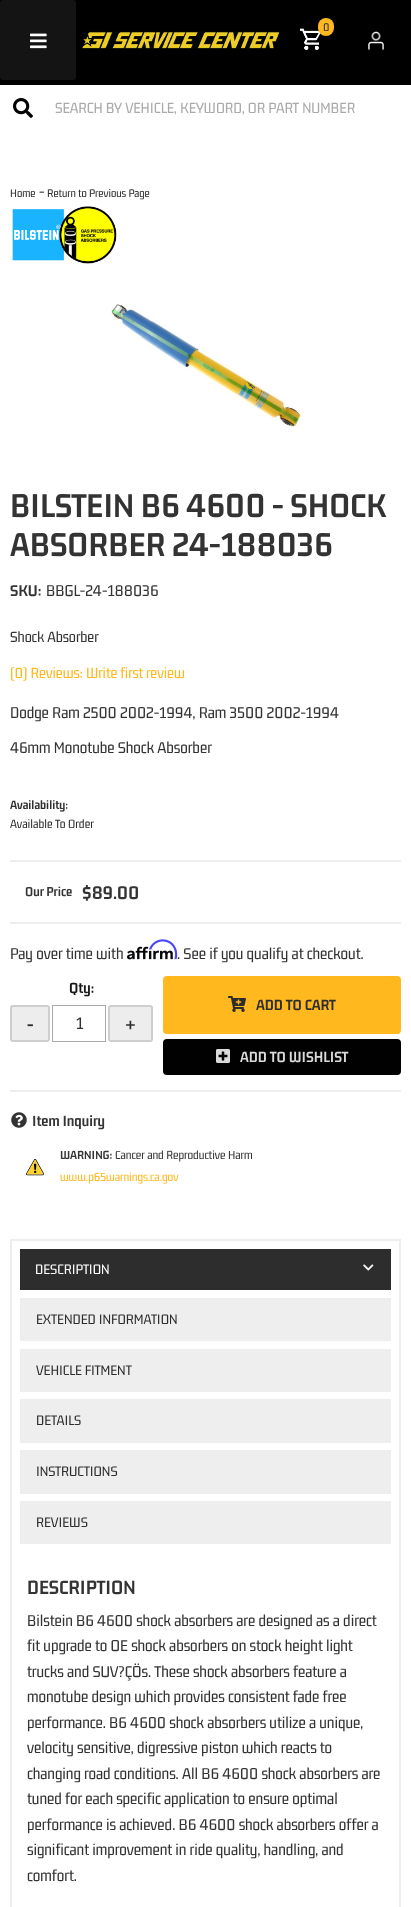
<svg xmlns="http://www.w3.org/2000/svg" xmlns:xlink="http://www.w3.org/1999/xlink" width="411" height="1907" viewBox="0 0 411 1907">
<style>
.cls-1{font:200 12px Gemunu Libre;fill:#2d2d2d}
.cls-2{font:200 16px Gemunu Libre;fill:#aaaaaa}
.cls-3{font:200 17px Gemunu Libre;fill:#333333}
.cls-4{font:200 36px 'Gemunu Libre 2';fill:#333333}
.cls-5{font:200 17px 'Gemunu Libre 2';fill:#333333}
.cls-6{font:200 16px Gemunu Libre;fill:#333333}
.cls-7{font:200 16px Gemunu Libre;fill:#ffb81d}
.cls-8{font:200 13px 'Gemunu Libre 2';fill:#2d2d2d}
.cls-9{font:200 13px Gemunu Libre;fill:#2d2d2d}
.cls-10{font:200 14px 'Gemunu Libre 2';fill:#333333}
.cls-11{font:200 20px 'Gemunu Libre 2';fill:#333333}
.cls-12{font:200 16px 'Gemunu Libre 2';fill:#141414}
.cls-13{font:200 20px 'Gemunu Libre 2';fill:#2d2d2d}
.cls-14{font:200 18px Gemunu Libre;fill:#333333}
.cls-15{font:200 16px 'Gemunu Libre 2';fill:#2d2d2d}
.cls-16{font:200 16px 'Gemunu Libre 2';fill:#dadada}
.cls-17{font:200 16px 'Gemunu Libre 2';fill:#333333}
.cls-18{font:200 12.75px 'Gemunu Libre 2';fill:#333333}
.cls-19{font:200 12.75px Gemunu Libre;fill:#333333}
.cls-20{font:200 12.75px Gemunu Libre;fill:#ffb81d}
.cls-21{font:200 15px Gemunu Libre;fill:#ffffff}
.cls-22{font:200 15px Gemunu Libre;fill:#2d2d2d}
.cls-23{font:200 21px 'Gemunu Libre 2';fill:#333333}
</style>
<rect width="100%" height="100%" fill="#ffffff"/>
<rect fill="#000000" x="0" y="0" width="411" height="85"/>
<rect fill="#141414" x="0" y="0" width="76" height="80" rx="3"/>
<image xlink:href="image0.png" x="30" y="33" width="17" height="16"/>
<image xlink:href="image1.png" x="300" y="28" width="21" height="22"/>
<rect fill="#ffb81d" x="318" y="18" width="16" height="18" rx="8"/>
<image xlink:href="image2.png" x="82" y="31" width="199" height="18"/>
<image xlink:href="image3.png" x="368" y="31" width="16" height="19"/>
<image xlink:href="image4.png" x="13" y="98" width="20" height="20"/>
<image xlink:href="image5.png" x="12" y="206" width="105" height="58"/>
<image xlink:href="image6.png" x="110" y="304" width="193" height="126"/>
<rect fill="#eeeeee" x="10" y="860" width="391" height="2"/>
<rect fill="#eeeeee" x="10" y="922" width="391" height="2"/>
<image xlink:href="image8.png" x="127" y="946" width="46" height="14"/>
<rect fill="#eeeeee" x="10" y="1090" width="391" height="2"/>
<rect fill="#ededed" stroke="#cecece" stroke-width="2" x="11" y="1006" width="38" height="35" rx="2"/>
<rect fill="none" stroke="#aaaaaa" x="52.5" y="1005.5" width="53" height="36"/>
<rect fill="#ededed" stroke="#cecece" stroke-width="2" x="109" y="1006" width="43" height="35" rx="2"/>
<rect fill="#ffb81d" stroke="#ffb81d" stroke-width="2" x="164" y="977" width="236" height="56" rx="3"/>
<image xlink:href="image9.png" x="228" y="996" width="18" height="16"/>
<rect fill="#010101" x="163" y="1039" width="238" height="36" rx="4"/>
<image xlink:href="image10.png" x="216" y="1049" width="14" height="14"/>
<image xlink:href="image11.png" x="11" y="1112" width="16" height="16"/>
<image xlink:href="image12.png" x="26" y="1159" width="18" height="17"/>
<rect fill="#eeeeee" x="10" y="1239" width="391" height="2"/>
<rect fill="#eeeeee" x="399" y="1239" width="2" height="668"/>
<rect fill="#eeeeee" x="10" y="1239" width="2" height="668"/>
<rect fill="#2d2d2d" x="20" y="1249" width="371" height="41"/>
<image xlink:href="image13.png" x="363" y="1264" width="11" height="7"/>
<rect fill="#eeeeee" x="20" y="1298" width="371" height="43"/>
<rect fill="#eeeeee" x="20" y="1349" width="371" height="43"/>
<rect fill="#eeeeee" x="20" y="1399" width="371" height="44"/>
<rect fill="#eeeeee" x="20" y="1450" width="371" height="44"/>
<rect fill="#eeeeee" x="20" y="1501" width="371" height="43"/>
<text class="cls-1" x="323" y="31">0</text>
<text class="cls-2" x="55" y="113">SEARCH BY VEHICLE, KEYWORD, OR PART NUMBER</text>
<text class="cls-1" x="10" y="197">Home</text>
<text class="cls-3" x="39" y="197">-</text>
<text class="cls-1" x="47" y="197">Return to Previous Page</text>
<text class="cls-4"><tspan x="10" y="517">BILSTEIN B6 4600 - SHOCK</tspan><tspan x="10" y="556">ABSORBER 24-188036</tspan></text>
<text class="cls-5" x="10" y="596">SKU:</text>
<text class="cls-3" x="46" y="596">BBGL-24-188036</text>
<text class="cls-6" x="10" y="642">Shock Absorber</text>
<text class="cls-7" x="10" y="678">(0) Reviews: Write first review</text>
<text class="cls-3" x="10" y="718">Dodge Ram 2500 2002-1994, Ram 3500 2002-1994</text>
<text class="cls-3" x="10" y="753">46mm Monotube Shock Absorber</text>
<text class="cls-8" x="10" y="809">Availability:</text>
<text class="cls-9" x="10" y="828">Available To Order</text>
<text class="cls-10" x="25" y="896">Our Price</text>
<text class="cls-11" x="82" y="899">$89.00</text>
<text class="cls-3" x="10" y="959">Pay over time with</text>
<text class="cls-3" x="177" y="959">. See if you qualify at checkout.</text>
<image xlink:href="image7.png" x="149" y="939" width="29" height="21"/>
<text class="cls-12" x="69" y="993">Qty:</text>
<text class="cls-13" x="27" y="1031">-</text>
<text class="cls-14" x="76" y="1029">1</text>
<text class="cls-13" x="125" y="1031">+</text>
<text class="cls-15" x="256" y="1010">ADD TO CART</text>
<text class="cls-16" x="240" y="1062">ADD TO WISHLIST</text>
<text class="cls-17" x="32" y="1126">Item Inquiry</text>
<text class="cls-18" x="60" y="1159">WARNING:</text>
<text class="cls-19" x="115" y="1159">Cancer and Reproductive Harm</text>
<text class="cls-20" x="60" y="1181">www.p65warnings.ca.gov</text>
<text class="cls-21" x="35" y="1274">DESCRIPTION</text>
<text class="cls-22" x="36" y="1324">EXTENDED INFORMATION</text>
<text class="cls-22" x="36" y="1375">VEHICLE FITMENT</text>
<text class="cls-22" x="36" y="1425">DETAILS</text>
<text class="cls-22" x="36" y="1476">INSTRUCTIONS</text>
<text class="cls-22" x="36" y="1527">REVIEWS</text>
<text class="cls-23" x="27" y="1594">DESCRIPTION</text>
<text class="cls-3"><tspan x="27" y="1626">Bilstein B6 4600 shock absorbers are designed as a direct</tspan><tspan x="27" y="1651">fit upgrade to OE shock absorbers on stock height light</tspan><tspan x="27" y="1677">trucks and SUV?ÇÖs. These shock absorbers feature a</tspan><tspan x="27" y="1702">monotube design which provides consistent fade free</tspan><tspan x="27" y="1728">performance. B6 4600 shock absorbers utilize a unique,</tspan><tspan x="27" y="1753">velocity sensitive, digressive piston which reacts to</tspan><tspan x="27" y="1779">changing road conditions. All B6 4600 shock absorbers are</tspan><tspan x="27" y="1804">tuned for each specific application to ensure optimal</tspan><tspan x="27" y="1830">performance is achieved. B6 4600 shock absorbers offer a</tspan><tspan x="27" y="1855">significant improvement in ride quality, handling, and</tspan><tspan x="27" y="1881">comfort.</tspan></text>
</svg>
